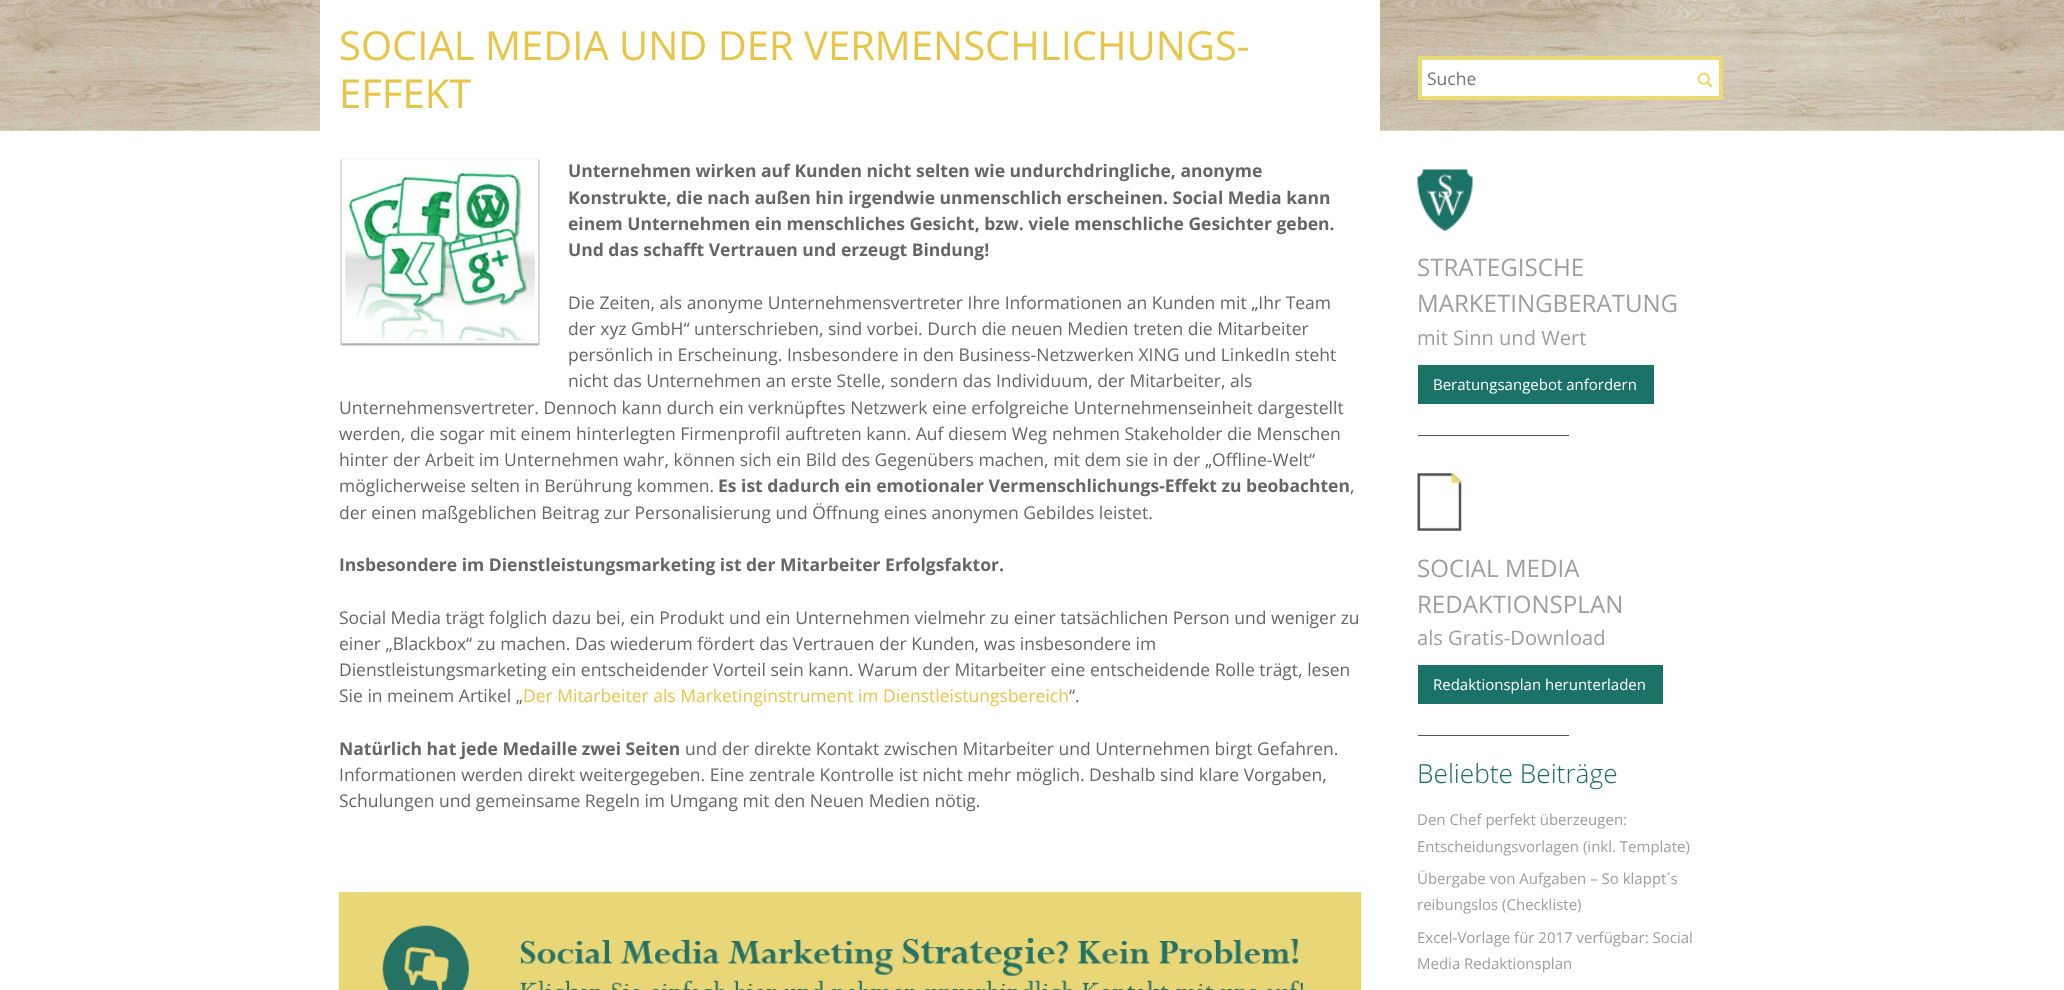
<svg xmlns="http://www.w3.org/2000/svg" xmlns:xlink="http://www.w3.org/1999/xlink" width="2064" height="990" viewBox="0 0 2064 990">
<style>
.cls-1{font:40px Open Sans;fill:#e9c547}
.cls-2{font:bold 17.5px Open Sans;fill:#666666}
.cls-3{font:17.5px Open Sans;fill:#666666}
.cls-4{font:17.5px Open Sans;fill:#e9c547}
.cls-5{font:17.5px Open Sans;fill:#757575}
.cls-6{font:24.1px Open Sans;fill:#a19c9d}
.cls-7{font:20.1px Open Sans;fill:#a19c9d}
.cls-8{font:15px Open Sans;fill:#ffffff}
.cls-9{font:300 26.25px Open Sans;fill:#1b6f60}
.cls-10{font:15px Open Sans;fill:#a19c9d}
</style>
<rect width="100%" height="100%" fill="#ffffff"/>
<image xlink:href="image0.png" x="0" y="0" width="2064" height="131"/>
<rect fill="#ffffff" x="320" y="0" width="1060" height="131"/>
<image xlink:href="image1.png" x="339" y="158" width="202" height="189"/>
<image xlink:href="image2.png" x="338" y="892" width="1024" height="98"/>
<rect fill="#ffffff" stroke="#eeda72" stroke-width="4" x="1420" y="58" width="301" height="40"/>
<image xlink:href="image3.png" x="1697" y="72" width="16" height="16"/>
<image xlink:href="image4.png" x="1417" y="169" width="56" height="62"/>
<rect fill="#1b7267" stroke="#1b6f60" x="1418.5" y="365.5" width="235" height="38"/>
<rect fill="#555254" x="1418" y="435" width="151" height="1"/>
<image xlink:href="image5.png" x="1417" y="473" width="45" height="58"/>
<rect fill="#1b7267" stroke="#1b6f60" x="1418.5" y="665.5" width="244" height="38"/>
<rect fill="#555254" x="1418" y="735" width="151" height="1"/>
<text class="cls-1"><tspan x="339" y="60">SOCIAL MEDIA UND DER VERMENSCHLICHUNGS-</tspan><tspan x="339" y="108">EFFEKT</tspan></text>
<text class="cls-2"><tspan x="568" y="177">Unternehmen wirken auf Kunden nicht selten wie undurchdringliche, anonyme</tspan><tspan x="568" y="204">Konstrukte, die nach außen hin irgendwie unmenschlich erscheinen. Social Media kann</tspan><tspan x="568" y="230">einem Unternehmen ein menschliches Gesicht, bzw. viele menschliche Gesichter geben.</tspan><tspan x="568" y="256">Und das schafft Vertrauen und erzeugt Bindung!</tspan></text>
<text class="cls-3"><tspan x="568" y="309">Die Zeiten, als anonyme Unternehmensvertreter Ihre Informationen an Kunden mit „Ihr Team</tspan><tspan x="568" y="335">der xyz GmbH“ unterschrieben, sind vorbei. Durch die neuen Medien treten die Mitarbeiter</tspan><tspan x="568" y="361">persönlich in Erscheinung. Insbesondere in den Business-Netzwerken XING und LinkedIn steht</tspan><tspan x="568" y="387">nicht das Unternehmen an erste Stelle, sondern das Individuum, der Mitarbeiter, als</tspan></text>
<text class="cls-3"><tspan x="339" y="414">Unternehmensvertreter. Dennoch kann durch ein verknüpftes Netzwerk eine erfolgreiche Unternehmenseinheit dargestellt</tspan><tspan x="339" y="440">werden, die sogar mit einem hinterlegten Firmenprofil auftreten kann. Auf diesem Weg nehmen Stakeholder die Menschen</tspan><tspan x="339" y="466">hinter der Arbeit im Unternehmen wahr, können sich ein Bild des Gegenübers machen, mit dem sie in der „Offline-Welt“</tspan><tspan x="339" y="492">möglicherweise selten in Berührung kommen.</tspan></text>
<text class="cls-2" x="718" y="492">Es ist dadurch ein emotionaler Vermenschlichungs-Effekt zu beobachten</text>
<text class="cls-3" x="1350" y="492">,</text>
<text class="cls-3" x="339" y="519">der einen maßgeblichen Beitrag zur Personalisierung und Öffnung eines anonymen Gebildes leistet.</text>
<text class="cls-2" x="339" y="571">Insbesondere im Dienstleistungsmarketing ist der Mitarbeiter Erfolgsfaktor.</text>
<text class="cls-3"><tspan x="339" y="624">Social Media trägt folglich dazu bei, ein Produkt und ein Unternehmen vielmehr zu einer tatsächlichen Person und weniger zu</tspan><tspan x="339" y="650">einer „Blackbox“ zu machen. Das wiederum fördert das Vertrauen der Kunden, was insbesondere im</tspan><tspan x="339" y="676">Dienstleistungsmarketing ein entscheidender Vorteil sein kann. Warum der Mitarbeiter eine entscheidende Rolle trägt, lesen</tspan><tspan x="339" y="702">Sie in meinem Artikel „</tspan></text>
<text class="cls-4" x="523" y="702">Der Mitarbeiter als Marketinginstrument im Dienstleistungsbereich</text>
<text class="cls-3" x="1069" y="702">“.</text>
<text class="cls-2" x="339" y="755">Natürlich hat jede Medaille zwei Seiten</text>
<text class="cls-3" x="685" y="755">und der direkte Kontakt zwischen Mitarbeiter und Unternehmen birgt Gefahren.</text>
<text class="cls-3"><tspan x="339" y="781">Informationen werden direkt weitergegeben. Eine zentrale Kontrolle ist nicht mehr möglich. Deshalb sind klare Vorgaben,</tspan><tspan x="339" y="807">Schulungen und gemeinsame Regeln im Umgang mit den Neuen Medien nötig.</tspan></text>
<text class="cls-5" x="1427" y="85">Suche</text>
<text class="cls-6"><tspan x="1417" y="276">STRATEGISCHE</tspan><tspan x="1417" y="312">MARKETINGBERATUNG</tspan></text>
<text class="cls-7" x="1417" y="345">mit Sinn und Wert</text>
<text class="cls-8" x="1433" y="390">Beratungsangebot anfordern</text>
<text class="cls-6"><tspan x="1417" y="577">SOCIAL MEDIA</tspan><tspan x="1417" y="613">REDAKTIONSPLAN</tspan></text>
<text class="cls-7" x="1417" y="645">als Gratis-Download</text>
<text class="cls-8" x="1433" y="690">Redaktionsplan herunterladen</text>
<text class="cls-9" x="1417" y="783">Beliebte Beiträge</text>
<text class="cls-10"><tspan x="1417" y="825">Den Chef perfekt überzeugen:</tspan><tspan x="1417" y="852">Entscheidungsvorlagen (inkl. Template)</tspan></text>
<text class="cls-10"><tspan x="1417" y="884">Übergabe von Aufgaben – So klappt´s</tspan><tspan x="1417" y="910">reibungslos (Checkliste)</tspan></text>
<text class="cls-10"><tspan x="1417" y="943">Excel-Vorlage für 2017 verfügbar: Social</tspan><tspan x="1417" y="969">Media Redaktionsplan</tspan></text>
</svg>
